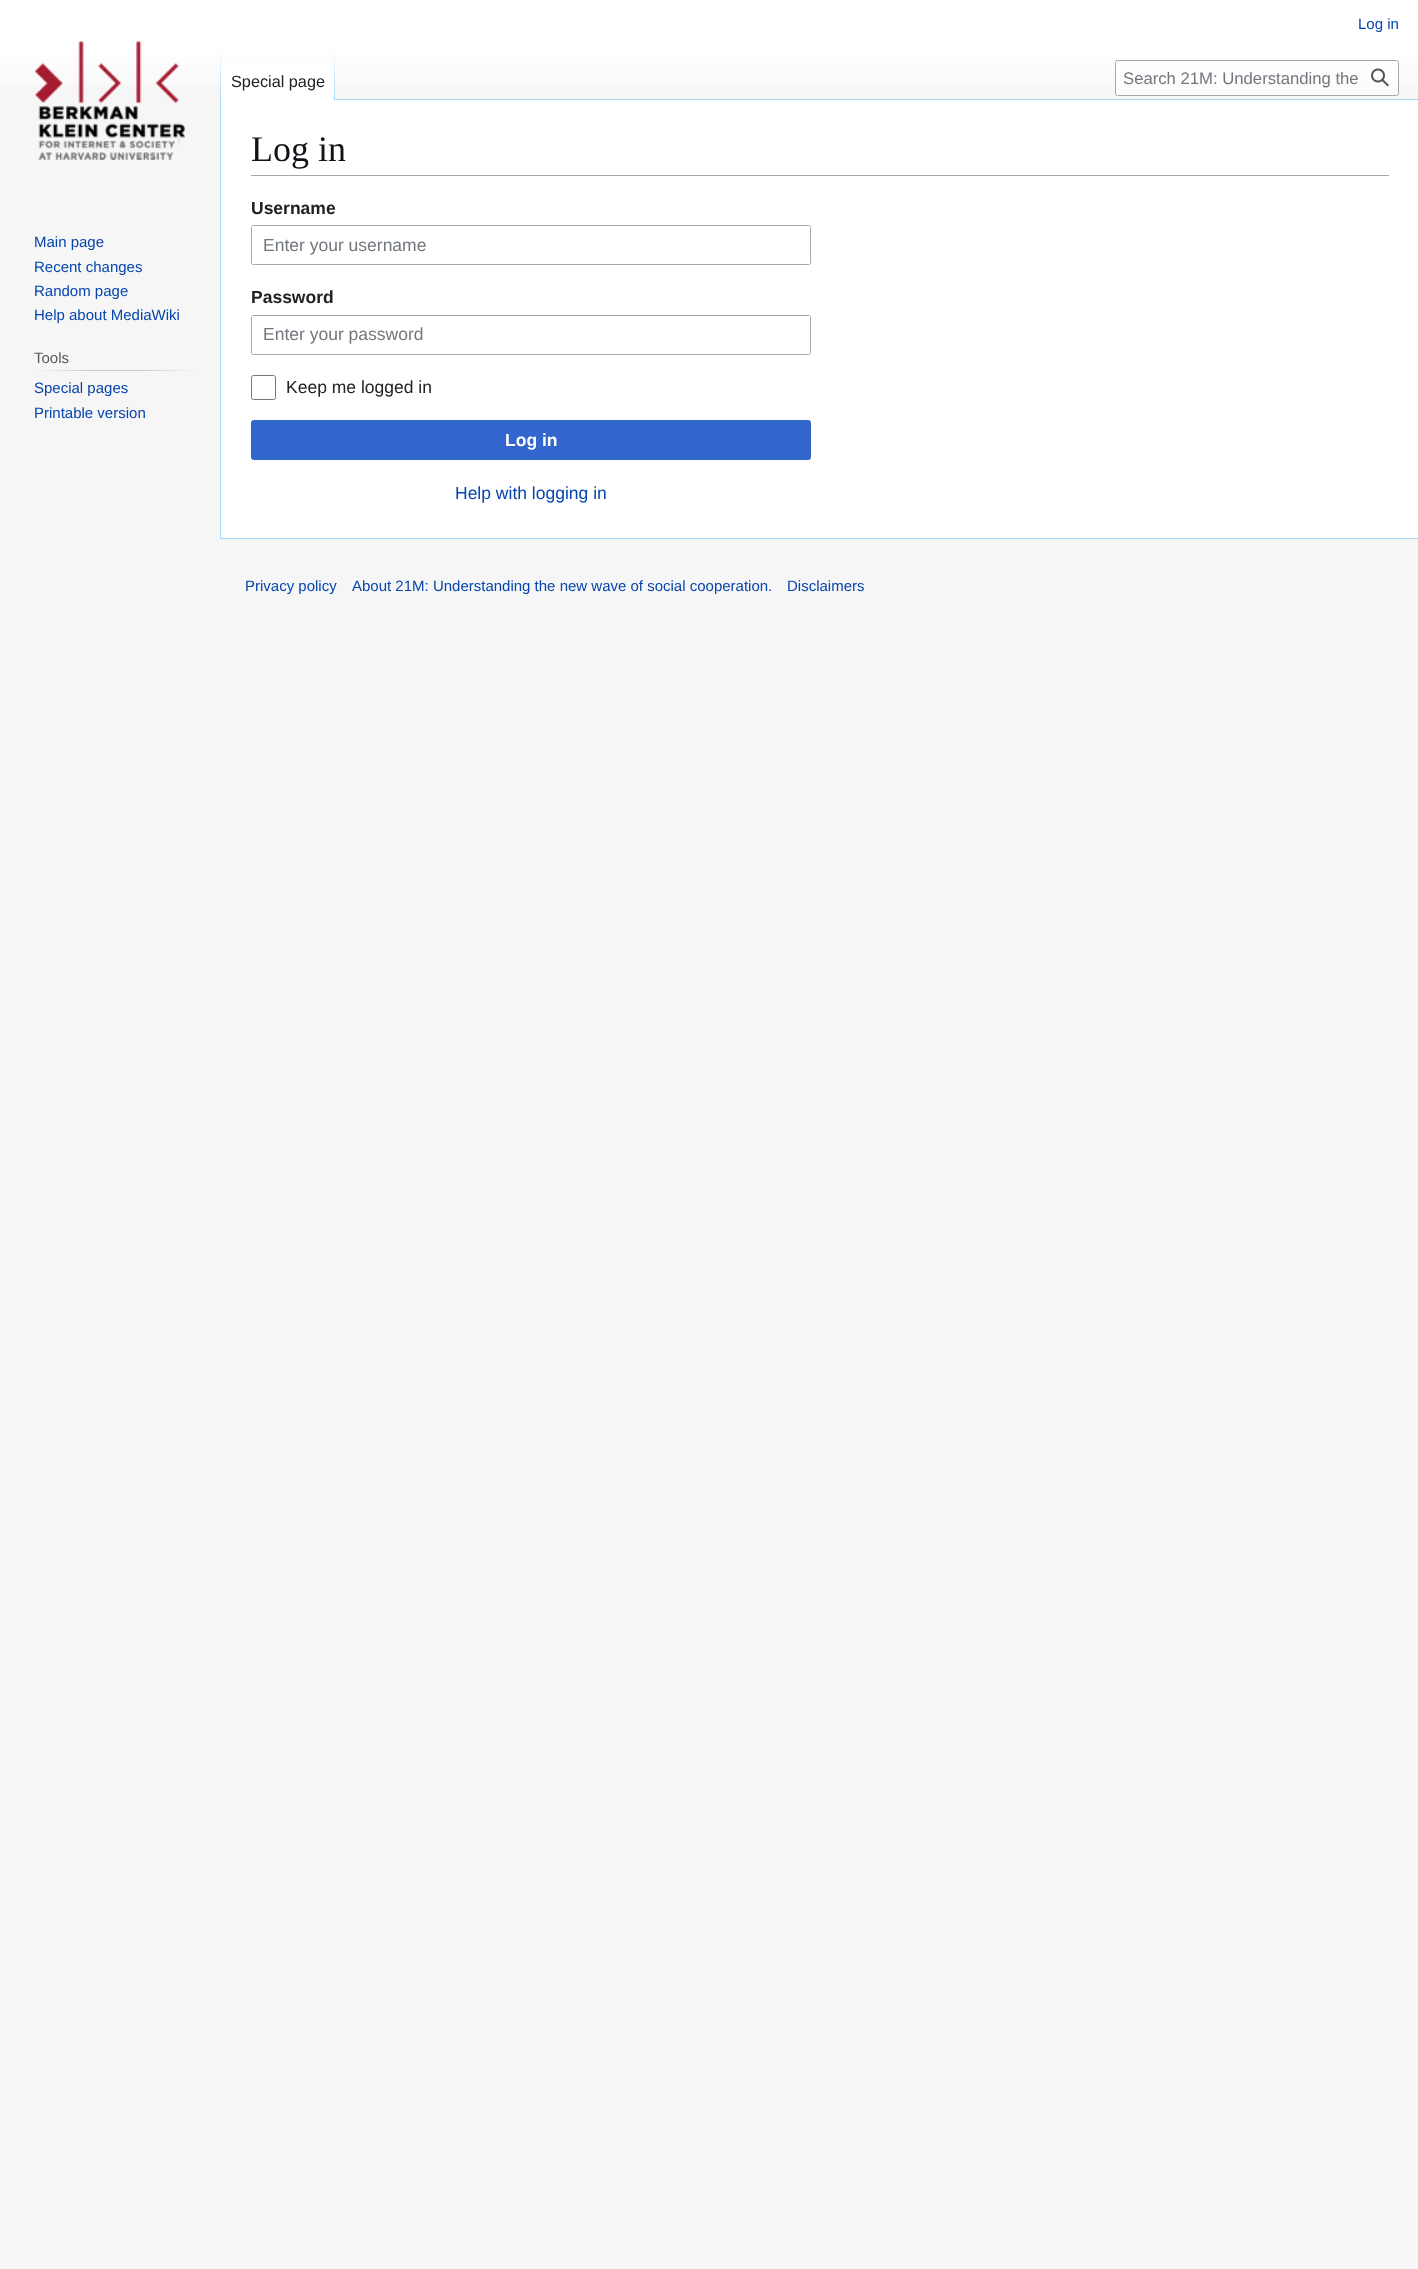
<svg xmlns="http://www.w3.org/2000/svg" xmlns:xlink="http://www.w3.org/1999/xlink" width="1418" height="2269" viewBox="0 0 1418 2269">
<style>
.cls-1{font:15px Liberation Sans;fill:#0645ad}
.cls-2{font:16.25px Liberation Sans;fill:#202122}
.cls-3{font:16.7px Liberation Sans;fill:#72777d}
.cls-4{font:15px Liberation Sans;fill:#54595d}
.cls-5{font:36px Liberation Serif;fill:#101418}
.cls-6{font:bold 17.5px Liberation Sans;fill:#202122}
.cls-7{font:17.5px Liberation Sans;fill:#72777d}
.cls-8{font:17.5px Liberation Sans;fill:#202122}
.cls-9{font:bold 17.5px Liberation Sans;fill:#ffffff}
.cls-10{font:17.5px Liberation Sans;fill:#0645ad}
</style>
<defs>
<linearGradient id="g1" gradientUnits="userSpaceOnUse" x1="709" y1="0" x2="709" y2="100"><stop offset="0.5" stop-color="#ffffff"/><stop offset="1" stop-color="#f6f6f6"/></linearGradient>
<linearGradient id="g2" gradientUnits="userSpaceOnUse" x1="221" y1="50" x2="221" y2="100"><stop offset="0" stop-color="#a7d7f9" stop-opacity="0"/><stop offset="1" stop-color="#a7d7f9"/></linearGradient>
<linearGradient id="g3" gradientUnits="userSpaceOnUse" x1="334" y1="50" x2="334" y2="100"><stop offset="0" stop-color="#ffffff"/><stop offset="1" stop-color="#a7d7f9"/></linearGradient>
<linearGradient id="g4" gradientUnits="userSpaceOnUse" x1="34" y1="371" x2="198" y2="371"><stop offset="0" stop-color="#f6f6f6"/><stop offset="0.33" stop-color="#c8ccd1"/><stop offset="0.66" stop-color="#c8ccd1"/><stop offset="1" stop-color="#f6f6f6"/></linearGradient>
</defs>
<rect width="100%" height="100%" fill="#f6f6f6"/>
<rect fill="url(#g1)" x="0" y="0" width="1418" height="86"/>
<rect fill="#a7d7f9" x="220" y="538" width="1198" height="1"/>
<rect fill="#a7d7f9" x="220" y="99" width="1" height="440"/>
<rect fill="url(#g2)" x="220" y="50" width="1" height="50"/>
<rect fill="#ffffff" x="221" y="64" width="113" height="36"/>
<rect fill="url(#g3)" x="334" y="50" width="1" height="50"/>
<rect fill="#ffffff" fill-opacity="0.5" stroke="#a2a9b1" x="1115.5" y="60.5" width="283" height="35" rx="2"/>
<image xlink:href="image0.png" x="1371" y="68" width="18" height="19"/>
<image xlink:href="image1.png" x="35" y="41" width="150" height="119"/>
<rect fill="url(#g4)" x="34" y="370" width="164" height="1"/>
<rect fill="#ffffff" x="221" y="100" width="1197" height="438"/>
<rect fill="#a7d7f9" x="335" y="99" width="1083" height="1"/>
<rect fill="#a2a9b1" x="251" y="175" width="1138" height="1"/>
<path fill="#a2a9b1" fill-rule="evenodd" d="M254 225C252 225 251 226 251 228V262C251 264 252 265 254 265H808C810 265 811 264 811 262V228C811 226 810 225 808 225ZM252 226V264H810V226Z"/>
<path fill="#a2a9b1" fill-rule="evenodd" d="M254 315C252 315 251 316 251 318V352C251 354 252 355 254 355H808C810 355 811 354 811 352V318C811 316 810 315 808 315ZM252 316V354H810V316Z"/>
<rect fill="none" stroke="#72777d" x="251.5" y="375.5" width="24" height="24" rx="2"/>
<rect fill="#3366cc" stroke="#3366cc" x="251.5" y="420.5" width="559" height="39" rx="2"/>
<text class="cls-1" x="1358" y="29">Log in</text>
<text class="cls-2" x="231" y="87">Special page</text>
<text class="cls-3" x="1123" y="84">Search 21M: Understanding the</text>
<text class="cls-1"><tspan x="34" y="247">Main page</tspan><tspan x="34" y="272">Recent changes</tspan><tspan x="34" y="296">Random page</tspan><tspan x="34" y="320">Help about MediaWiki</tspan></text>
<text class="cls-4" x="34" y="363">Tools</text>
<text class="cls-1"><tspan x="34" y="393">Special pages</tspan><tspan x="34" y="418">Printable version</tspan></text>
<text class="cls-5" x="251" y="161">Log in</text>
<text class="cls-6" x="251" y="214">Username</text>
<text class="cls-7" x="263" y="251">Enter your username</text>
<text class="cls-6" x="251" y="303">Password</text>
<text class="cls-7" x="263" y="340">Enter your password</text>
<text class="cls-8" x="286" y="393">Keep me logged in</text>
<text class="cls-9" x="505" y="446">Log in</text>
<text class="cls-10" x="455" y="499">Help with logging in</text>
<text class="cls-1" x="245" y="591">Privacy policy</text>
<text class="cls-1" x="352" y="591">About 21M: Understanding the new wave of social cooperation.</text>
<text class="cls-1" x="787" y="591">Disclaimers</text>
</svg>
